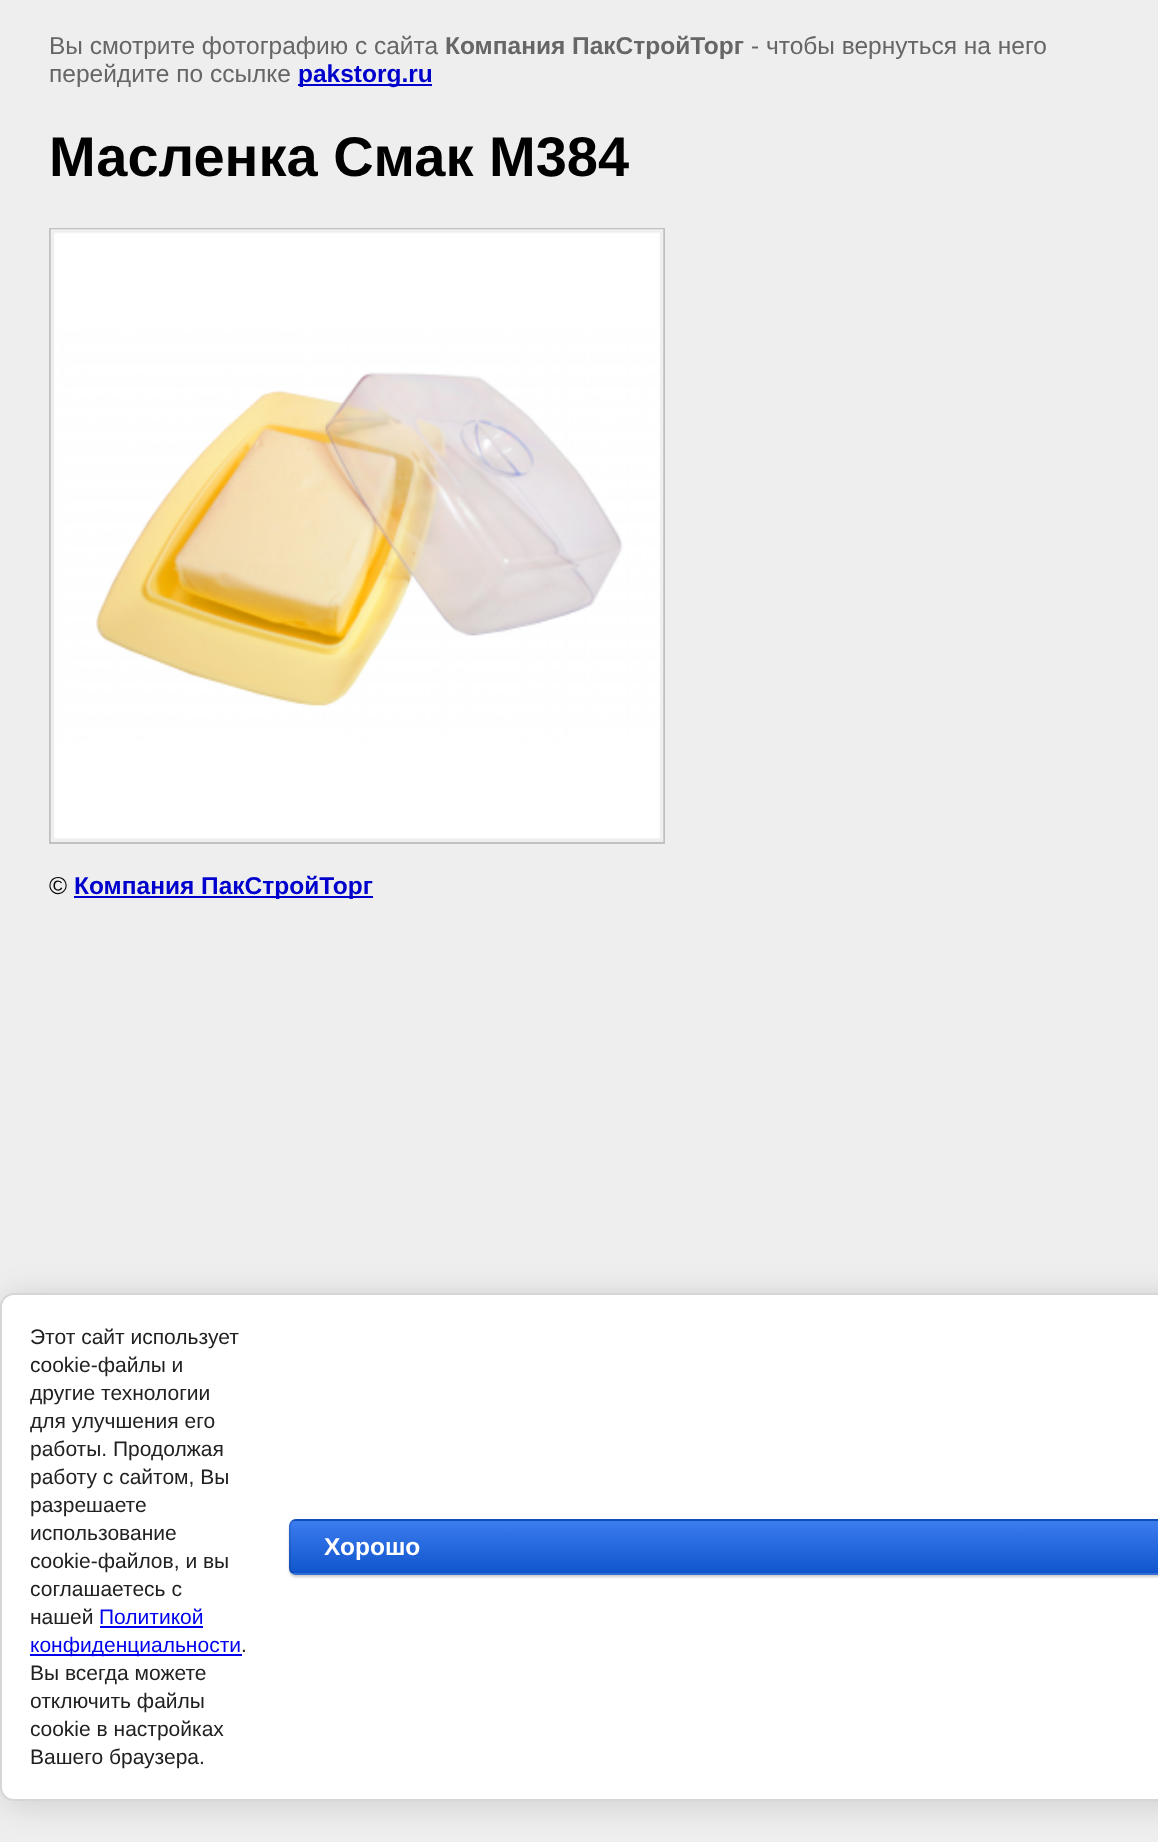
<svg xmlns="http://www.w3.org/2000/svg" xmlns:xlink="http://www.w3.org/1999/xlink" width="1158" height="1842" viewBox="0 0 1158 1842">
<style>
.cls-1{font:24.5px Liberation Sans;fill:#666666}
.cls-2{font:bold 24.5px Liberation Sans;fill:#666666}
.cls-3{font:bold 24.5px Liberation Sans;fill:#0000cc}
.cls-4{font:bold 56px Liberation Sans;fill:#000000}
.cls-5{font:24.5px Liberation Sans;fill:#000000}
.cls-6{font:21px Liberation Sans;fill:#212121}
.cls-7{font:21px Liberation Sans;fill:#0000ee}
.cls-8{font:bold 24.5px Liberation Sans;fill:#ffffff}
</style>
<defs>
<clipPath id="clip1"><rect x="289" y="1519" width="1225" height="56" rx="7"/></clipPath>
<linearGradient id="g1" gradientUnits="userSpaceOnUse" x1="901" y1="1468" x2="901" y2="1521"><stop offset="0" stop-color="#3b7cef"/><stop offset="1" stop-color="#1155cc"/></linearGradient>
<linearGradient id="g2" gradientUnits="userSpaceOnUse" x1="901" y1="1521" x2="901" y2="1573"><stop offset="0" stop-color="#3b7cef"/><stop offset="1" stop-color="#1155cc"/></linearGradient>
<linearGradient id="g3" gradientUnits="userSpaceOnUse" x1="901" y1="1573" x2="901" y2="1626"><stop offset="0" stop-color="#3b7cef"/><stop offset="1" stop-color="#1155cc"/></linearGradient>
</defs>
<rect width="100%" height="100%" fill="#eeeeee"/>
<rect fill="#0000cc" x="298" y="84" width="134" height="2"/>
<rect fill="none" stroke="#c0c0c0" stroke-width="2" x="50" y="229" width="614" height="614"/>
<image xlink:href="image0.png" x="50" y="229" width="614" height="613"/>
<rect fill="#0000cc" x="74" y="896" width="299" height="2"/>
<rect fill="#000000" fill-opacity="0.14" filter="blur(16px)" x="4" y="1297" width="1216" height="507" rx="14"/>
<rect fill="#ffffff" stroke="#d6d6d6" stroke-width="2" x="1" y="1294" width="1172" height="506" rx="13"/>
<rect fill="#0000ee" x="100" y="1626" width="103" height="2"/>
<rect fill="#0000ee" x="30" y="1654" width="212" height="2"/>
<rect fill="#000000" fill-opacity="0.2" filter="blur(1px)" x="289" y="1521" width="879" height="56" rx="7"/>
<g clip-path="url(#clip1)">
<rect fill="url(#g1)" x="289" y="1519" width="869" height="2"/>
<rect fill="url(#g2)" x="289" y="1521" width="869" height="52"/>
<rect fill="url(#g3)" x="289" y="1573" width="869" height="2"/>
</g>
<rect fill="none" stroke="#000000" stroke-opacity="0.1" stroke-width="2" x="290" y="1520" width="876" height="54" rx="6"/>
<text class="cls-1" x="49" y="54">Вы смотрите фотографию с сайта</text>
<text class="cls-2" x="445" y="54">Компания ПакСтройТорг</text>
<text class="cls-1" x="751" y="54">- чтобы вернуться на него</text>
<text class="cls-1" x="49" y="82">перейдите по ссылке</text>
<text class="cls-3" x="298" y="82">pakstorg.ru</text>
<text class="cls-4" x="49" y="176">Масленка Смак М384</text>
<text class="cls-5" x="49" y="894">©</text>
<text class="cls-3" x="74" y="894">Компания ПакСтройТорг</text>
<text class="cls-6"><tspan x="30" y="1344">Этот сайт использует</tspan><tspan x="30" y="1372">cookie-файлы и</tspan><tspan x="30" y="1400">другие технологии</tspan><tspan x="30" y="1428">для улучшения его</tspan><tspan x="30" y="1456">работы. Продолжая</tspan><tspan x="30" y="1484">работу с сайтом, Вы</tspan><tspan x="30" y="1512">разрешаете</tspan><tspan x="30" y="1540">использование</tspan><tspan x="30" y="1568">cookie-файлов, и вы</tspan><tspan x="30" y="1596">соглашаетесь с</tspan><tspan x="30" y="1624">нашей</tspan></text>
<text class="cls-7" x="99" y="1624">Политикой</text>
<text class="cls-7" x="30" y="1652">конфиденциальности</text>
<text class="cls-6" x="241" y="1652">.</text>
<text class="cls-6"><tspan x="30" y="1680">Вы всегда можете</tspan><tspan x="30" y="1708">отключить файлы</tspan><tspan x="30" y="1736">cookie в настройках</tspan><tspan x="30" y="1764">Вашего браузера.</tspan></text>
<text class="cls-8" x="324" y="1555">Хорошо</text>
</svg>
